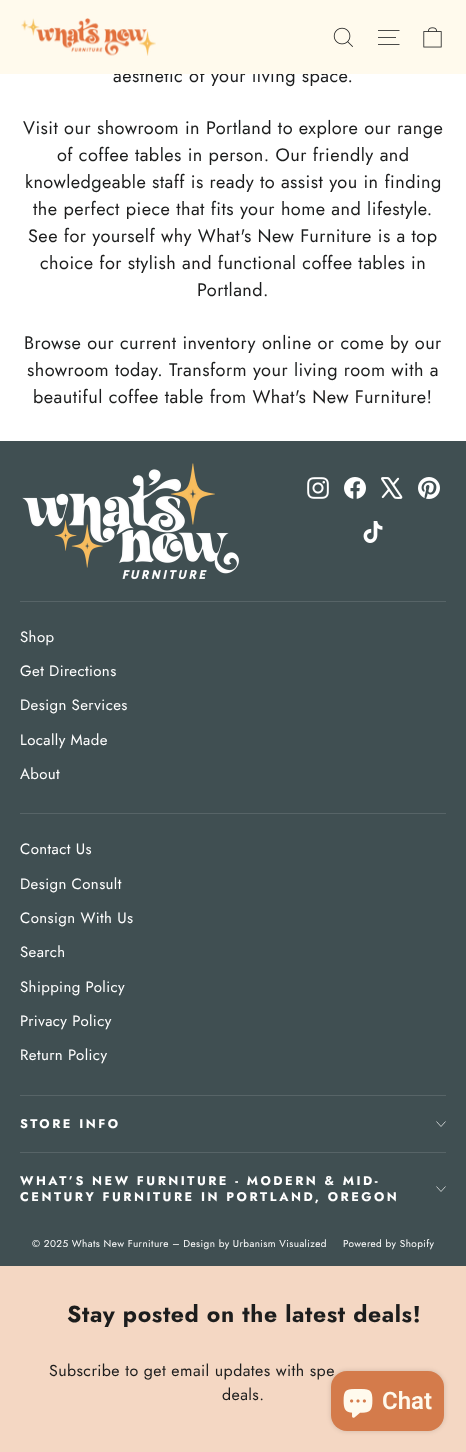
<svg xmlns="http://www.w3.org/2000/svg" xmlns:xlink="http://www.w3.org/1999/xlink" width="466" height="1452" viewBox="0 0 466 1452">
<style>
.cls-1{font:18.1px Jost;letter-spacing:0.45px;fill:#1c1d1d}
.cls-2{font:15px Jost;letter-spacing:0.4px;fill:#ffffff}
.cls-3{font:bold 12.6px Jost;letter-spacing:2.5px;fill:#ffffff}
.cls-4{font:10px Jost;letter-spacing:0.4px;fill:#ffffff}
.cls-5{font:bold 23px Jost;letter-spacing:0.6px;fill:#1c1d1d}
.cls-6{font:16px Jost;letter-spacing:0.4px;fill:#1c1d1d}
.cls-7{font:600 24px Roboto;fill:#fffaed}
</style>
<rect width="100%" height="100%" fill="#ffffff"/>
<rect fill="#404f52" x="0" y="441" width="466" height="825"/>
<image xlink:href="image3.png" x="22" y="463" width="217" height="117"/>
<image xlink:href="image4.png" x="307" y="477" width="22" height="22"/>
<image xlink:href="image5.png" x="344" y="477" width="22" height="22"/>
<image xlink:href="image6.png" x="381" y="477" width="22" height="22"/>
<image xlink:href="image7.png" x="418" y="477" width="22" height="22"/>
<image xlink:href="image8.png" x="363" y="521" width="20" height="22"/>
<rect fill="#576467" x="20" y="601" width="426" height="1"/>
<rect fill="#576467" x="20" y="813" width="426" height="1"/>
<rect fill="#576467" x="20" y="1095" width="426" height="1"/>
<path fill="none" stroke="#ffffff" stroke-width="0.7" d="M436.5 1121.5L441 1126.5L445.5 1121.5"/>
<rect fill="#576467" x="20" y="1152" width="426" height="1"/>
<path fill="none" stroke="#ffffff" stroke-width="0.7" d="M436.5 1186.5L441 1191.5L445.5 1186.5"/>
<rect fill="#f4d7c3" x="0" y="1266" width="466" height="186"/>
<rect fill="#000000" fill-opacity="0.15" filter="blur(2.5px)" x="331" y="1371" width="113" height="60" rx="16"/>
<text class="cls-1" x="113" y="82">aesthetic of your living space.</text>
<rect fill="#fffaed" x="0" y="0" width="466" height="74"/>
<image xlink:href="image2.png" x="423" y="27" width="19" height="21"/>
<image xlink:href="image0.png" x="21" y="18" width="135" height="38"/>
<path fill="none" stroke="#1c1d1d" stroke-width="0.8" d="M378 30.5H399.5M378 37.5H396M378 44.5H399.5"/>
<image xlink:href="image1.png" x="333" y="27" width="20" height="20"/>
<text class="cls-1" x="23" y="134">Visit our showroom in Portland to explore our range</text>
<text class="cls-1" x="57" y="161">of coffee tables in person. Our friendly and</text>
<text class="cls-1" x="25" y="188">knowledgeable staff is ready to assist you in finding</text>
<text class="cls-1" x="33" y="215">the perfect piece that fits your home and lifestyle.</text>
<text class="cls-1" x="28" y="242">See for yourself why What's New Furniture is a top</text>
<text class="cls-1" x="40" y="269">choice for stylish and functional coffee tables in</text>
<text class="cls-1" x="197" y="296">Portland.</text>
<text class="cls-1" x="24" y="349">Browse our current inventory online or come by our</text>
<text class="cls-1" x="27" y="376">showroom today. Transform your living room with a</text>
<text class="cls-1" x="33" y="403">beautiful coffee table from What's New Furniture!</text>
<text class="cls-2" x="20" y="642">Shop</text>
<text class="cls-2" x="20" y="676">Get Directions</text>
<text class="cls-2" x="20" y="710">Design Services</text>
<text class="cls-2" x="20" y="745">Locally Made</text>
<text class="cls-2" x="20" y="779">About</text>
<text class="cls-2" x="20" y="854">Contact Us</text>
<text class="cls-2" x="20" y="889">Design Consult</text>
<text class="cls-2" x="20" y="923">Consign With Us</text>
<text class="cls-2" x="20" y="957">Search</text>
<text class="cls-2" x="20" y="992">Shipping Policy</text>
<text class="cls-2" x="20" y="1026">Privacy Policy</text>
<text class="cls-2" x="20" y="1060">Return Policy</text>
<text class="cls-3" x="20" y="1128">STORE INFO</text>
<text class="cls-3"><tspan x="20" y="1185">WHAT’S NEW FURNITURE - MODERN &amp; MID-</tspan><tspan x="20" y="1201">CENTURY FURNITURE IN PORTLAND, OREGON</tspan></text>
<text class="cls-4" x="32" y="1247">© 2025 Whats New Furniture – Design by Urbanism Visualized</text>
<text class="cls-4" x="343" y="1247">Powered by Shopify</text>
<text class="cls-5" x="67" y="1322">Stay posted on the latest deals!</text>
<text class="cls-6" x="49" y="1376">Subscribe to get email updates with spe</text>
<text class="cls-6" x="222" y="1400">deals.</text>
<rect fill="#d47b4b" x="331" y="1371" width="113" height="60" rx="16"/>
<image xlink:href="image9.png" x="343" y="1389" width="30" height="29"/>
<text class="cls-7" x="382" y="1409">Chat</text>
</svg>
